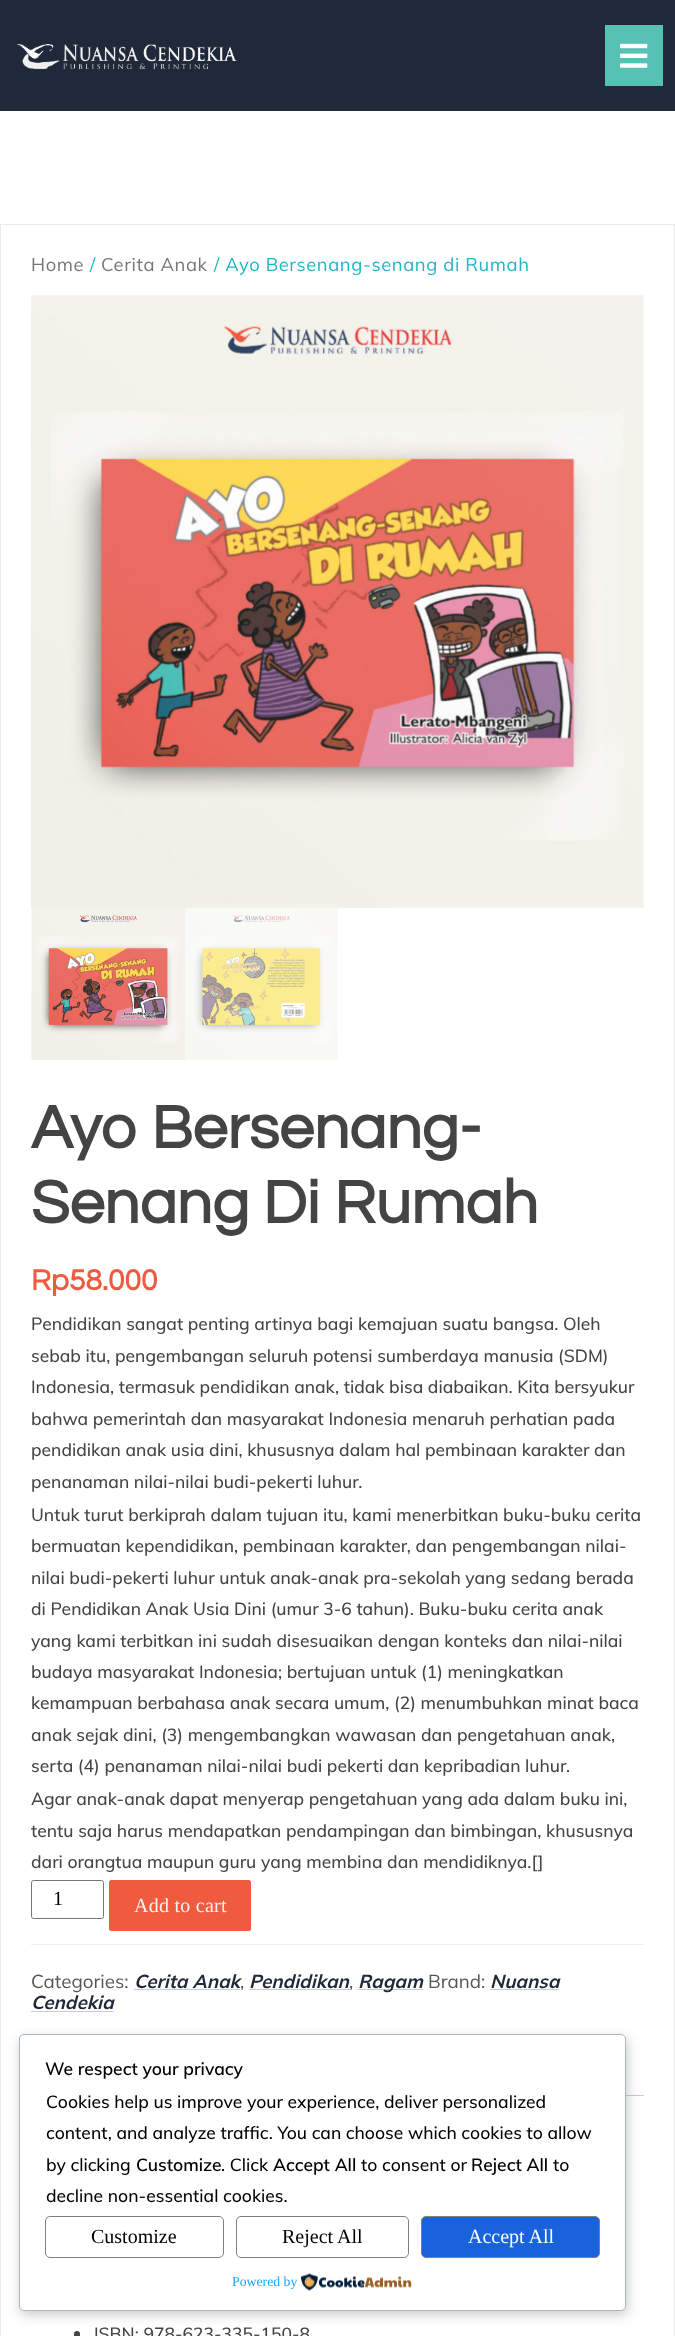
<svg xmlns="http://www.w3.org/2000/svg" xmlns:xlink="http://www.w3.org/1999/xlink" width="675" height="2336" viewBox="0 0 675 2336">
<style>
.cls-1{font:18.4px Mulish;letter-spacing:0.6px;fill:#767676}
.cls-2{font:18.4px Mulish;letter-spacing:0.6px;fill:#1fb6c6}
.cls-3{font:bold 62.5px Questrial;fill:#444444}
.cls-4{font:bold 30px Questrial;fill:#f05a3f}
.cls-5{font:500 17.5px Muli;fill:#444444}
.cls-6{font:20px Liberation Serif;fill:#000000}
.cls-7{font:20px Liberation Serif;letter-spacing:0.25px;fill:#f2f2f2}
.cls-8{font:18.75px Mulish;fill:#555555}
.cls-9{font:italic bold 18.75px Mulish;fill:#20293a}
.cls-10{font:600 17.5px Muli;fill:#000000}
.cls-11{font:500 17.5px Muli;fill:#000000}
.cls-12{font:20px Liberation Serif;fill:#ffffff}
.cls-13{font:13.75px Liberation Serif;fill:#1ca4ff}
</style>
<rect width="100%" height="100%" fill="#ffffff"/>
<rect fill="#20293a" x="0" y="0" width="675" height="111"/>
<image xlink:href="image0.png" x="17" y="44" width="220" height="26"/>
<rect fill="#57c1b6" x="605" y="25" width="58" height="61"/>
<image xlink:href="image1.png" x="620" y="43" width="28" height="25"/>
<rect fill="none" stroke="#eaeaea" x="0.5" y="224.5" width="674" height="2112"/>
<image xlink:href="image3.png" x="31" y="907" width="154" height="153"/>
<image xlink:href="image2.png" x="31" y="295" width="613" height="613"/>
<image xlink:href="image4.png" x="185" y="908" width="153" height="152"/>
<rect fill="#eeeeee" x="31" y="1944" width="613" height="1"/>
<rect fill="none" stroke="#767676" x="31.5" y="1880.5" width="72" height="38" rx="2"/>
<rect fill="#f05a3f" x="109" y="1880" width="142" height="51" rx="2.5"/>
<rect fill="#c9cbcf" x="490" y="1989" width="69" height="1"/>
<rect fill="#c9cbcf" x="134" y="1989" width="106" height="1"/>
<rect fill="#c9cbcf" x="249" y="1989" width="100" height="1"/>
<rect fill="#c9cbcf" x="358" y="1989" width="65" height="1"/>
<rect fill="#c9cbcf" x="31" y="2011" width="83" height="1"/>
<rect fill="#cfc8d8" x="626" y="2095" width="18" height="1"/>
<rect fill="#444444" x="74" y="2331" width="6" height="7" rx="3"/>
<rect fill="#000000" fill-opacity="0.2" filter="blur(6px)" x="20" y="2038" width="608" height="277" rx="5"/>
<rect fill="#ffffff" stroke="#abb8c3" x="19.5" y="2034.5" width="606" height="276" rx="4.5"/>
<rect fill="none" stroke="#808080" x="45.5" y="2216.5" width="178" height="41" rx="4.5"/>
<rect fill="none" stroke="#808080" x="236.5" y="2216.5" width="172" height="41" rx="4.5"/>
<rect fill="#1863dc" stroke="#808080" x="421.5" y="2216.5" width="178" height="41" rx="4.5"/>
<image xlink:href="image5.png" x="301" y="2273" width="111" height="18"/>
<text class="cls-1" x="31" y="271">Home</text>
<text class="cls-2" x="90" y="271">/</text>
<text class="cls-1" x="101" y="271">Cerita Anak</text>
<text class="cls-2" x="214" y="271">/ Ayo Bersenang-senang di Rumah</text>
<text class="cls-3"><tspan x="31" y="1148">Ayo Bersenang-</tspan><tspan x="31" y="1223">Senang Di Rumah</tspan></text>
<text class="cls-4" x="31" y="1290">Rp58.000</text>
<text class="cls-5"><tspan x="31" y="1330">Pendidikan sangat penting artinya bagi kemajuan suatu bangsa. Oleh</tspan><tspan x="31" y="1362">sebab itu, pengembangan seluruh potensi sumberdaya manusia (SDM)</tspan><tspan x="31" y="1393">Indonesia, termasuk pendidikan anak, tidak bisa diabaikan. Kita bersyukur</tspan><tspan x="31" y="1425">bahwa pemerintah dan masyarakat Indonesia menaruh perhatian pada</tspan><tspan x="31" y="1456">pendidikan anak usia dini, khususnya dalam hal pembinaan karakter dan</tspan><tspan x="31" y="1488">penanaman nilai-nilai budi-pekerti luhur.</tspan><tspan x="31" y="1521">Untuk turut berkiprah dalam tujuan itu, kami menerbitkan buku-buku cerita</tspan><tspan x="31" y="1552">bermuatan kependidikan, pembinaan karakter, dan pengembangan nilai-</tspan><tspan x="31" y="1584">nilai budi-pekerti luhur untuk anak-anak pra-sekolah yang sedang berada</tspan><tspan x="31" y="1615">di Pendidikan Anak Usia Dini (umur 3-6 tahun). Buku-buku cerita anak</tspan><tspan x="31" y="1647">yang kami terbitkan ini sudah disesuaikan dengan konteks dan nilai-nilai</tspan><tspan x="31" y="1678">budaya masyarakat Indonesia; bertujuan untuk (1) meningkatkan</tspan><tspan x="31" y="1709">kemampuan berbahasa anak secara umum, (2) menumbuhkan minat baca</tspan><tspan x="31" y="1741">anak sejak dini, (3) mengembangkan wawasan dan pengetahuan anak,</tspan><tspan x="31" y="1772">serta (4) penanaman nilai-nilai budi pekerti dan kepribadian luhur.</tspan><tspan x="31" y="1805">Agar anak-anak dapat menyerap pengetahuan yang ada dalam buku ini,</tspan><tspan x="31" y="1837">tentu saja harus mendapatkan pendampingan dan bimbingan, khususnya</tspan><tspan x="31" y="1868">dari orangtua maupun guru yang membina dan mendidiknya.[]</tspan></text>
<text class="cls-6" x="53" y="1905">1</text>
<text class="cls-7" x="134" y="1912">Add to cart</text>
<text class="cls-8" x="31" y="1988">Categories:</text>
<text class="cls-9" x="134" y="1988">Cerita Anak</text>
<text class="cls-9" x="249" y="1988">Pendidikan</text>
<text class="cls-9" x="358" y="1988">Ragam</text>
<text class="cls-8" x="428" y="1988">Brand:</text>
<text class="cls-9" x="490" y="1988">Nuansa</text>
<text class="cls-8" x="240" y="1988">,</text>
<text class="cls-8" x="349" y="1988">,</text>
<text class="cls-9" x="31" y="2009">Cendekia</text>
<text class="cls-5" x="94" y="2340">ISBN: 978-623-335-150-8</text>
<text class="cls-10" x="45" y="2075">We respect your privacy</text>
<text class="cls-11"><tspan x="46" y="2108">Cookies help us improve your experience, deliver personalized</tspan><tspan x="46" y="2139">content, and analyze traffic. You can choose which cookies to allow</tspan><tspan x="46" y="2171">by clicking</tspan></text>
<text class="cls-10" x="136" y="2171">Customize</text>
<text class="cls-11" x="221" y="2171">. Click</text>
<text class="cls-10" x="273" y="2171">Accept All</text>
<text class="cls-11" x="361" y="2171">to consent or</text>
<text class="cls-10" x="471" y="2171">Reject All</text>
<text class="cls-11" x="553" y="2171">to</text>
<text class="cls-11" x="46" y="2202">decline non-essential cookies.</text>
<text class="cls-6" x="91" y="2243">Customize</text>
<text class="cls-6" x="282" y="2243">Reject All</text>
<text class="cls-12" x="468" y="2243">Accept All</text>
<text class="cls-13" x="232" y="2286">Powered by</text>
</svg>
